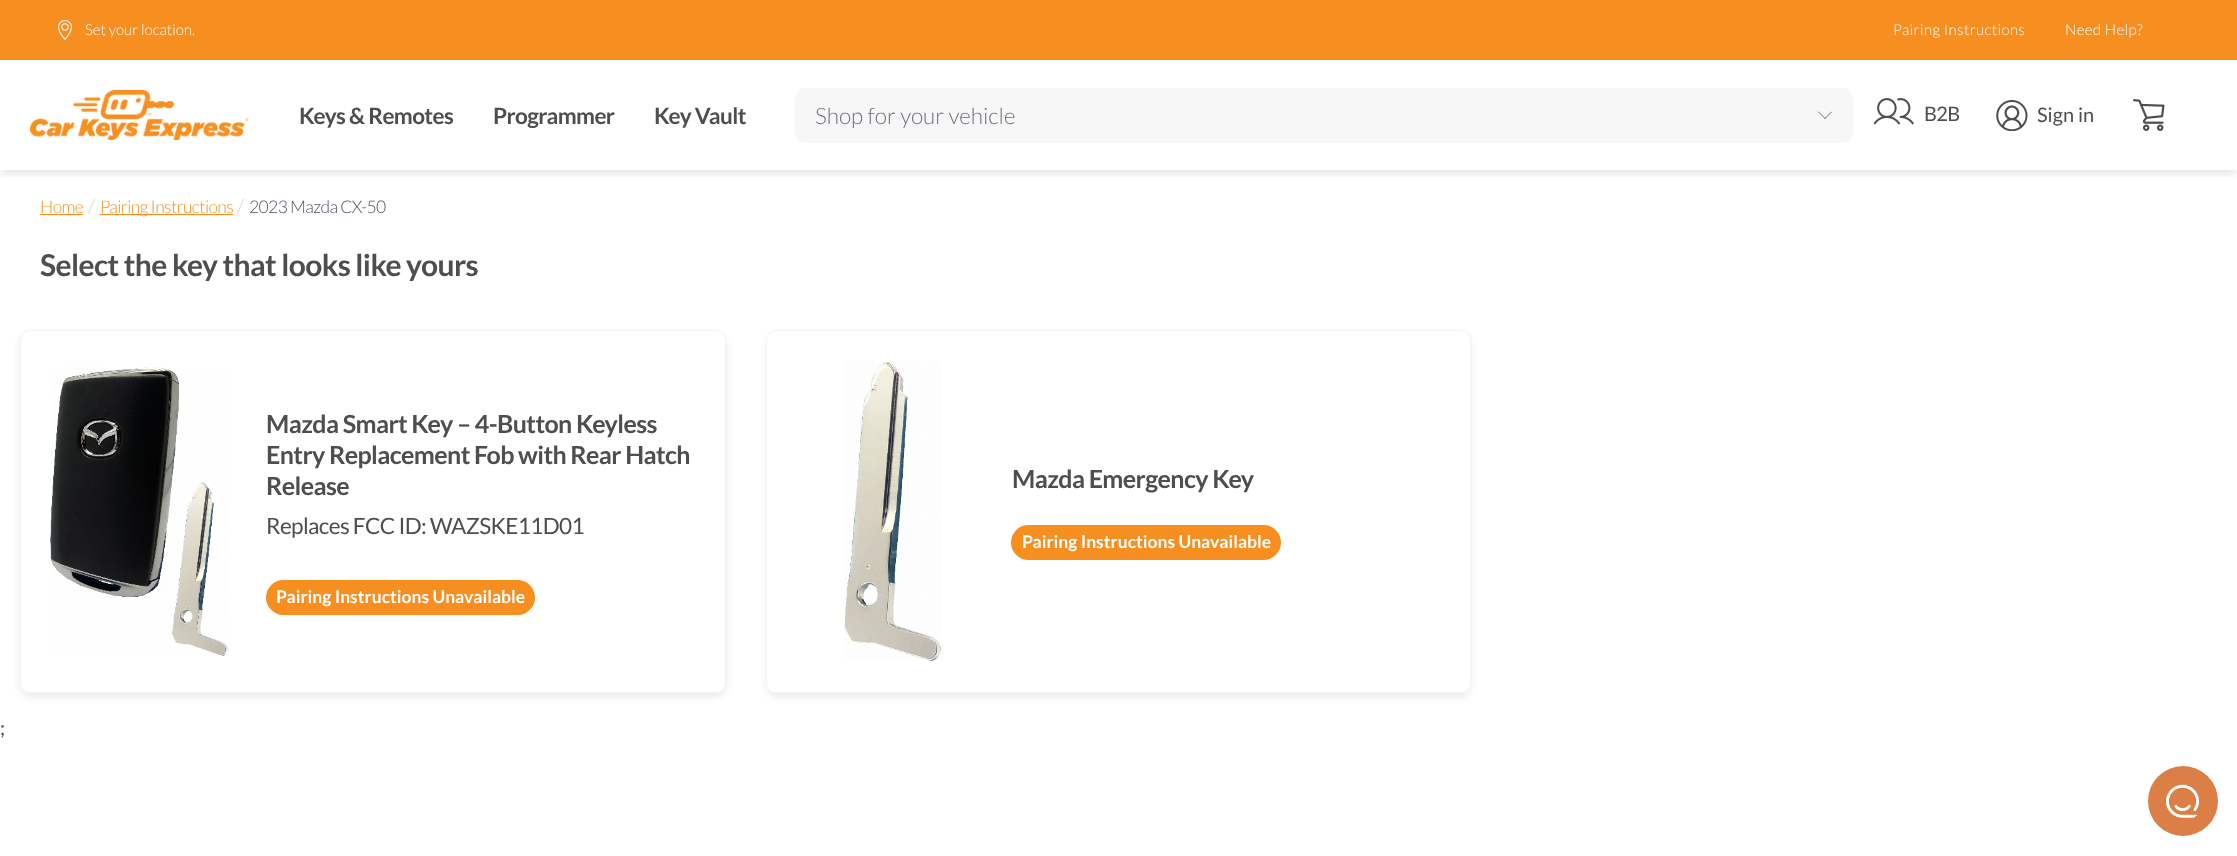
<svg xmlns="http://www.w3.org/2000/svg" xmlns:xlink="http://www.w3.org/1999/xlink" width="2237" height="856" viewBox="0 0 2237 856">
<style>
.cls-1{font:300 15px Lato;fill:#ffffff}
.cls-2{font:300 15px Lato;letter-spacing:0.4px;fill:#ffffff}
.cls-3{font:bold 22.5px Lato;letter-spacing:-0.6px;fill:#4d4e50}
.cls-4{font:300 22.5px Lato;fill:#6b7280}
.cls-5{font:20px Lato;letter-spacing:-0.6px;fill:#4d4e50}
.cls-6{font:20px Lato;fill:#4d4e50}
.cls-7{font:300 17.5px Lato;letter-spacing:-0.6px;fill:#f78e20}
.cls-8{font:300 20px Lato;letter-spacing:-0.6px;fill:#d1d5db}
.cls-9{font:300 17.5px Lato;letter-spacing:-0.6px;fill:#4b5563}
.cls-10{font:bold 30px Lato;letter-spacing:-0.6px;fill:#4d4e50}
.cls-11{font:bold 25px Lato;letter-spacing:-0.6px;fill:#4d4e50}
.cls-12{font:22.5px Lato;letter-spacing:-0.6px;fill:#4d4e50}
.cls-13{font:bold 17.5px Lato;fill:#ffffff}
</style>
<defs>
<clipPath id="clip1"><rect x="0" y="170" width="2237" height="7"/></clipPath>
<clipPath id="clip2"><path d="M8 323H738V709H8ZM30 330H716C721.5 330 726 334.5 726 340V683C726 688.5 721.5 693 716 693H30C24.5 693 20 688.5 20 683V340C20 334.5 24.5 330 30 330Z" clip-rule="evenodd"/></clipPath>
<clipPath id="clip3"><path d="M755 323H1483V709H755ZM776 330H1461C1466.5 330 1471 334.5 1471 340V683C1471 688.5 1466.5 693 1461 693H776C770.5 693 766 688.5 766 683V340C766 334.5 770.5 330 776 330Z" clip-rule="evenodd"/></clipPath>
</defs>
<rect width="100%" height="100%" fill="#ffffff"/>
<rect fill="#f78e20" x="0" y="0" width="2237" height="60"/>
<image xlink:href="image0.png" x="58" y="20" width="14" height="20"/>
<g clip-path="url(#clip1)">
<rect fill="#000000" fill-opacity="0.1" filter="blur(4px)" x="1" y="66" width="2235" height="108"/>
</g>
<image xlink:href="image1.png" x="30" y="90" width="219" height="50"/>
<rect fill="#f7f7f7" x="795" y="88" width="1058" height="55" rx="10"/>
<path fill="none" stroke="#4d4e50" stroke-width="0.8" stroke-linecap="round" stroke-linejoin="round" d="M1825 118.5L1818.5 112M1825 118.5L1831.5 112"/>
<image xlink:href="image2.png" x="1874" y="98" width="40" height="27"/>
<image xlink:href="image3.png" x="1996" y="100" width="32" height="31"/>
<image xlink:href="image4.png" x="2133" y="99" width="32" height="32"/>
<rect fill="#f78e20" x="40" y="214" width="43" height="1"/>
<rect fill="#f78e20" x="100" y="214" width="133" height="1"/>
<g clip-path="url(#clip2)">
<rect fill="#000000" fill-opacity="0.1" filter="blur(4px)" x="21" y="336" width="704" height="360" rx="9"/>
</g>
<rect fill="none" stroke="#f3f4f6" x="20.5" y="330.5" width="705" height="362" rx="9.5"/>
<image xlink:href="image5.png" x="50" y="367" width="178" height="289"/>
<rect fill="#f78e20" x="266" y="580" width="269" height="35" rx="17.5"/>
<g clip-path="url(#clip3)">
<rect fill="#000000" fill-opacity="0.1" filter="blur(4px)" x="768" y="336" width="702" height="360" rx="9"/>
</g>
<rect fill="none" stroke="#f3f4f6" x="766.5" y="330.5" width="704" height="362" rx="9.5"/>
<image xlink:href="image6.png" x="844" y="361" width="98" height="300"/>
<rect fill="#f78e20" x="1011" y="525" width="270" height="35" rx="17.5"/>
<circle fill="#db7f46" cx="2183" cy="801" r="35"/>
<image xlink:href="image7.png" x="2166" y="784" width="33" height="34"/>
<text class="cls-1" x="85" y="35">Set your location.</text>
<text class="cls-2" x="1893" y="35">Pairing Instructions</text>
<text class="cls-2" x="2065" y="35">Need Help?</text>
<text class="cls-3" x="299" y="124">Keys &amp; Remotes</text>
<text class="cls-3" x="493" y="124">Programmer</text>
<text class="cls-3" x="654" y="124">Key Vault</text>
<text class="cls-4" x="815" y="124">Shop for your vehicle</text>
<text class="cls-5" x="1924" y="121">B2B</text>
<text class="cls-6" x="2037" y="122">Sign in</text>
<text class="cls-7" x="40" y="213">Home</text>
<text class="cls-8" x="88" y="213">/</text>
<text class="cls-7" x="100" y="213">Pairing Instructions</text>
<text class="cls-8" x="237" y="213">/</text>
<text class="cls-9" x="249" y="213">2023 Mazda CX-50</text>
<text class="cls-10" x="40" y="276">Select the key that looks like yours</text>
<text class="cls-11"><tspan x="266" y="433">Mazda Smart Key – 4-Button Keyless</tspan><tspan x="266" y="464">Entry Replacement Fob with Rear Hatch</tspan><tspan x="266" y="495">Release</tspan></text>
<text class="cls-12" x="266" y="534">Replaces FCC ID: WAZSKE11D01</text>
<text class="cls-13" x="276" y="603">Pairing Instructions Unavailable</text>
<text class="cls-11" x="1012" y="488">Mazda Emergency Key</text>
<text class="cls-13" x="1022" y="548">Pairing Instructions Unavailable</text>
<text class="cls-5" x="0" y="735">;</text>
</svg>
